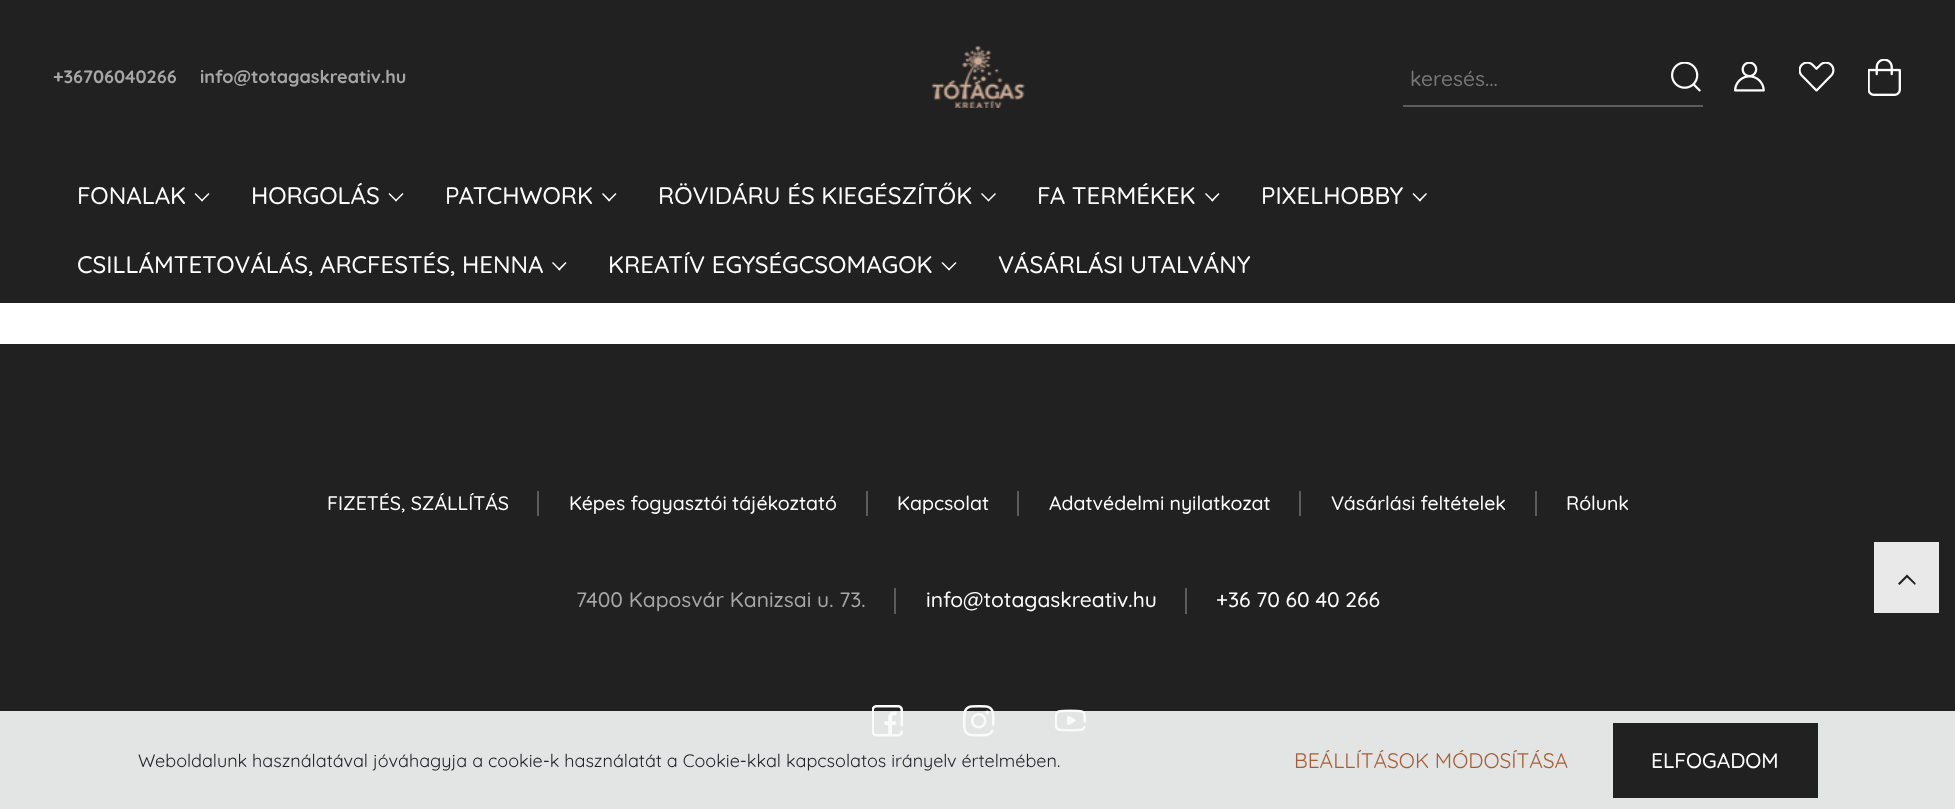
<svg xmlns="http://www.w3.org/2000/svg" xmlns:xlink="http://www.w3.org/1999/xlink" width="1955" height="809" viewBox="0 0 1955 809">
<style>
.cls-1{font:bold 18px Quicksand;fill:#a6a6a6}
.cls-2{font:500 21px Quicksand;fill:#767676}
.cls-3{font:500 24px Quicksand;fill:#ffffff}
.cls-4{font:500 19.5px Quicksand;fill:#ffffff}
.cls-5{font:500 21px Quicksand;fill:#a6a6a6}
.cls-6{font:500 21px Quicksand;fill:#ffffff}
.cls-7{font:18px Quicksand;fill:#212529}
.cls-8{font:21px Quicksand;fill:#a65e35}
</style>
<rect width="100%" height="100%" fill="#ffffff"/>
<rect fill="#212121" x="0" y="0" width="1955" height="303"/>
<image xlink:href="image0.png" x="931" y="46" width="94" height="62"/>
<rect fill="#5c5c5c" x="1403" y="105" width="300" height="2"/>
<image xlink:href="image1.png" x="1671" y="62" width="30" height="30"/>
<image xlink:href="image2.png" x="1734" y="62" width="31" height="30"/>
<image xlink:href="image3.png" x="1799" y="62" width="36" height="30"/>
<image xlink:href="image4.png" x="1868" y="59" width="33" height="37"/>
<path fill="#ffffff" d="M208.5 193L209.5 194L202 201.5L201 200.5Z"/>
<path fill="#ffffff" d="M195.5 193L203 200.5L202 201.5L194.5 194Z"/>
<path fill="#ffffff" d="M402.5 193L403.5 194L396 201.5L395 200.5Z"/>
<path fill="#ffffff" d="M389.5 193L397 200.5L396 201.5L388.5 194Z"/>
<path fill="#ffffff" d="M615.5 193L616.5 194L609 201.5L608 200.5Z"/>
<path fill="#ffffff" d="M603 193L610.5 200.5L609 201.5L602 194Z"/>
<path fill="#ffffff" d="M995 193L996 194L988.5 201.5L987.5 200.5Z"/>
<path fill="#ffffff" d="M982 193L989.5 200.5L988.5 201.5L981 194Z"/>
<path fill="#ffffff" d="M1218.5 193L1219.5 194L1212.5 201.5L1211 200.5Z"/>
<path fill="#ffffff" d="M1206 193L1213.5 200.5L1212.5 201.5L1205 194Z"/>
<path fill="#ffffff" d="M1426 193L1427 194L1420 201.5L1418.5 200.5Z"/>
<path fill="#ffffff" d="M1413.5 193L1421 200.5L1420 201.5L1412.5 194Z"/>
<path fill="#ffffff" d="M565.5 262L566.5 263L559.5 270.5L558 269.5Z"/>
<path fill="#ffffff" d="M553 262L560.5 269.5L559.5 270.5L552 263Z"/>
<path fill="#ffffff" d="M955.5 262L956.5 263L949 270.5L948 269.5Z"/>
<path fill="#ffffff" d="M942.5 262L950 269.5L949 270.5L941.5 263Z"/>
<rect fill="#212121" x="0" y="344" width="1955" height="465"/>
<rect fill="#5c5c5c" x="537" y="491" width="2" height="25"/>
<rect fill="#5c5c5c" x="866" y="491" width="2" height="25"/>
<rect fill="#5c5c5c" x="1017" y="491" width="2" height="25"/>
<rect fill="#5c5c5c" x="1299" y="491" width="2" height="25"/>
<rect fill="#5c5c5c" x="1535" y="491" width="2" height="25"/>
<rect fill="#5c5c5c" x="894" y="588" width="2" height="26"/>
<rect fill="#5c5c5c" x="1185" y="588" width="2" height="26"/>
<image xlink:href="image5.png" x="872" y="705" width="31" height="32"/>
<image xlink:href="image6.png" x="963" y="705" width="32" height="32"/>
<image xlink:href="image7.png" x="1055" y="709" width="31" height="23"/>
<rect fill="#e9e9e9" x="1874" y="542" width="65" height="71"/>
<path fill="#212121" d="M1898 583.5L1907 574.5L1915.5 583V584L1915 585L1907 577.5L1899.5 585Z"/>
<rect fill="#f8f9fa" fill-opacity="0.9" x="0" y="711" width="1955" height="98"/>
<rect fill="#212121" x="1613" y="723" width="205" height="75"/>
<text class="cls-1" x="53" y="83">+36706040266</text>
<text class="cls-1" x="200" y="83">info@totagaskreativ.hu</text>
<text class="cls-2" x="1410" y="86">keresés...</text>
<text class="cls-3" x="77" y="204">FONALAK</text>
<text class="cls-3" x="251" y="204">HORGOLÁS</text>
<text class="cls-3" x="445" y="204">PATCHWORK</text>
<text class="cls-3" x="658" y="204">RÖVIDÁRU ÉS KIEGÉSZÍTŐK</text>
<text class="cls-3" x="1037" y="204">FA TERMÉKEK</text>
<text class="cls-3" x="1261" y="204">PIXELHOBBY</text>
<text class="cls-3" x="77" y="273">CSILLÁMTETOVÁLÁS, ARCFESTÉS, HENNA</text>
<text class="cls-3" x="608" y="273">KREATÍV EGYSÉGCSOMAGOK</text>
<text class="cls-3" x="998" y="273">VÁSÁRLÁSI UTALVÁNY</text>
<text class="cls-4" x="327" y="510">FIZETÉS, SZÁLLÍTÁS</text>
<text class="cls-4" x="569" y="510">Képes fogyasztói tájékoztató</text>
<text class="cls-4" x="897" y="510">Kapcsolat</text>
<text class="cls-4" x="1049" y="510">Adatvédelmi nyilatkozat</text>
<text class="cls-4" x="1331" y="510">Vásárlási feltételek</text>
<text class="cls-4" x="1566" y="510">Rólunk</text>
<text class="cls-5" x="576" y="607">7400 Kaposvár Kanizsai u. 73.</text>
<text class="cls-6" x="926" y="607">info@totagaskreativ.hu</text>
<text class="cls-6" x="1216" y="607">+36 70 60 40 266</text>
<text class="cls-7" x="138" y="767">Weboldalunk használatával jóváhagyja a cookie-k használatát a Cookie-kkal kapcsolatos irányelv értelmében.</text>
<text class="cls-8" x="1294" y="768">BEÁLLÍTÁSOK MÓDOSÍTÁSA</text>
<text class="cls-6" x="1651" y="768">ELFOGADOM</text>
</svg>
